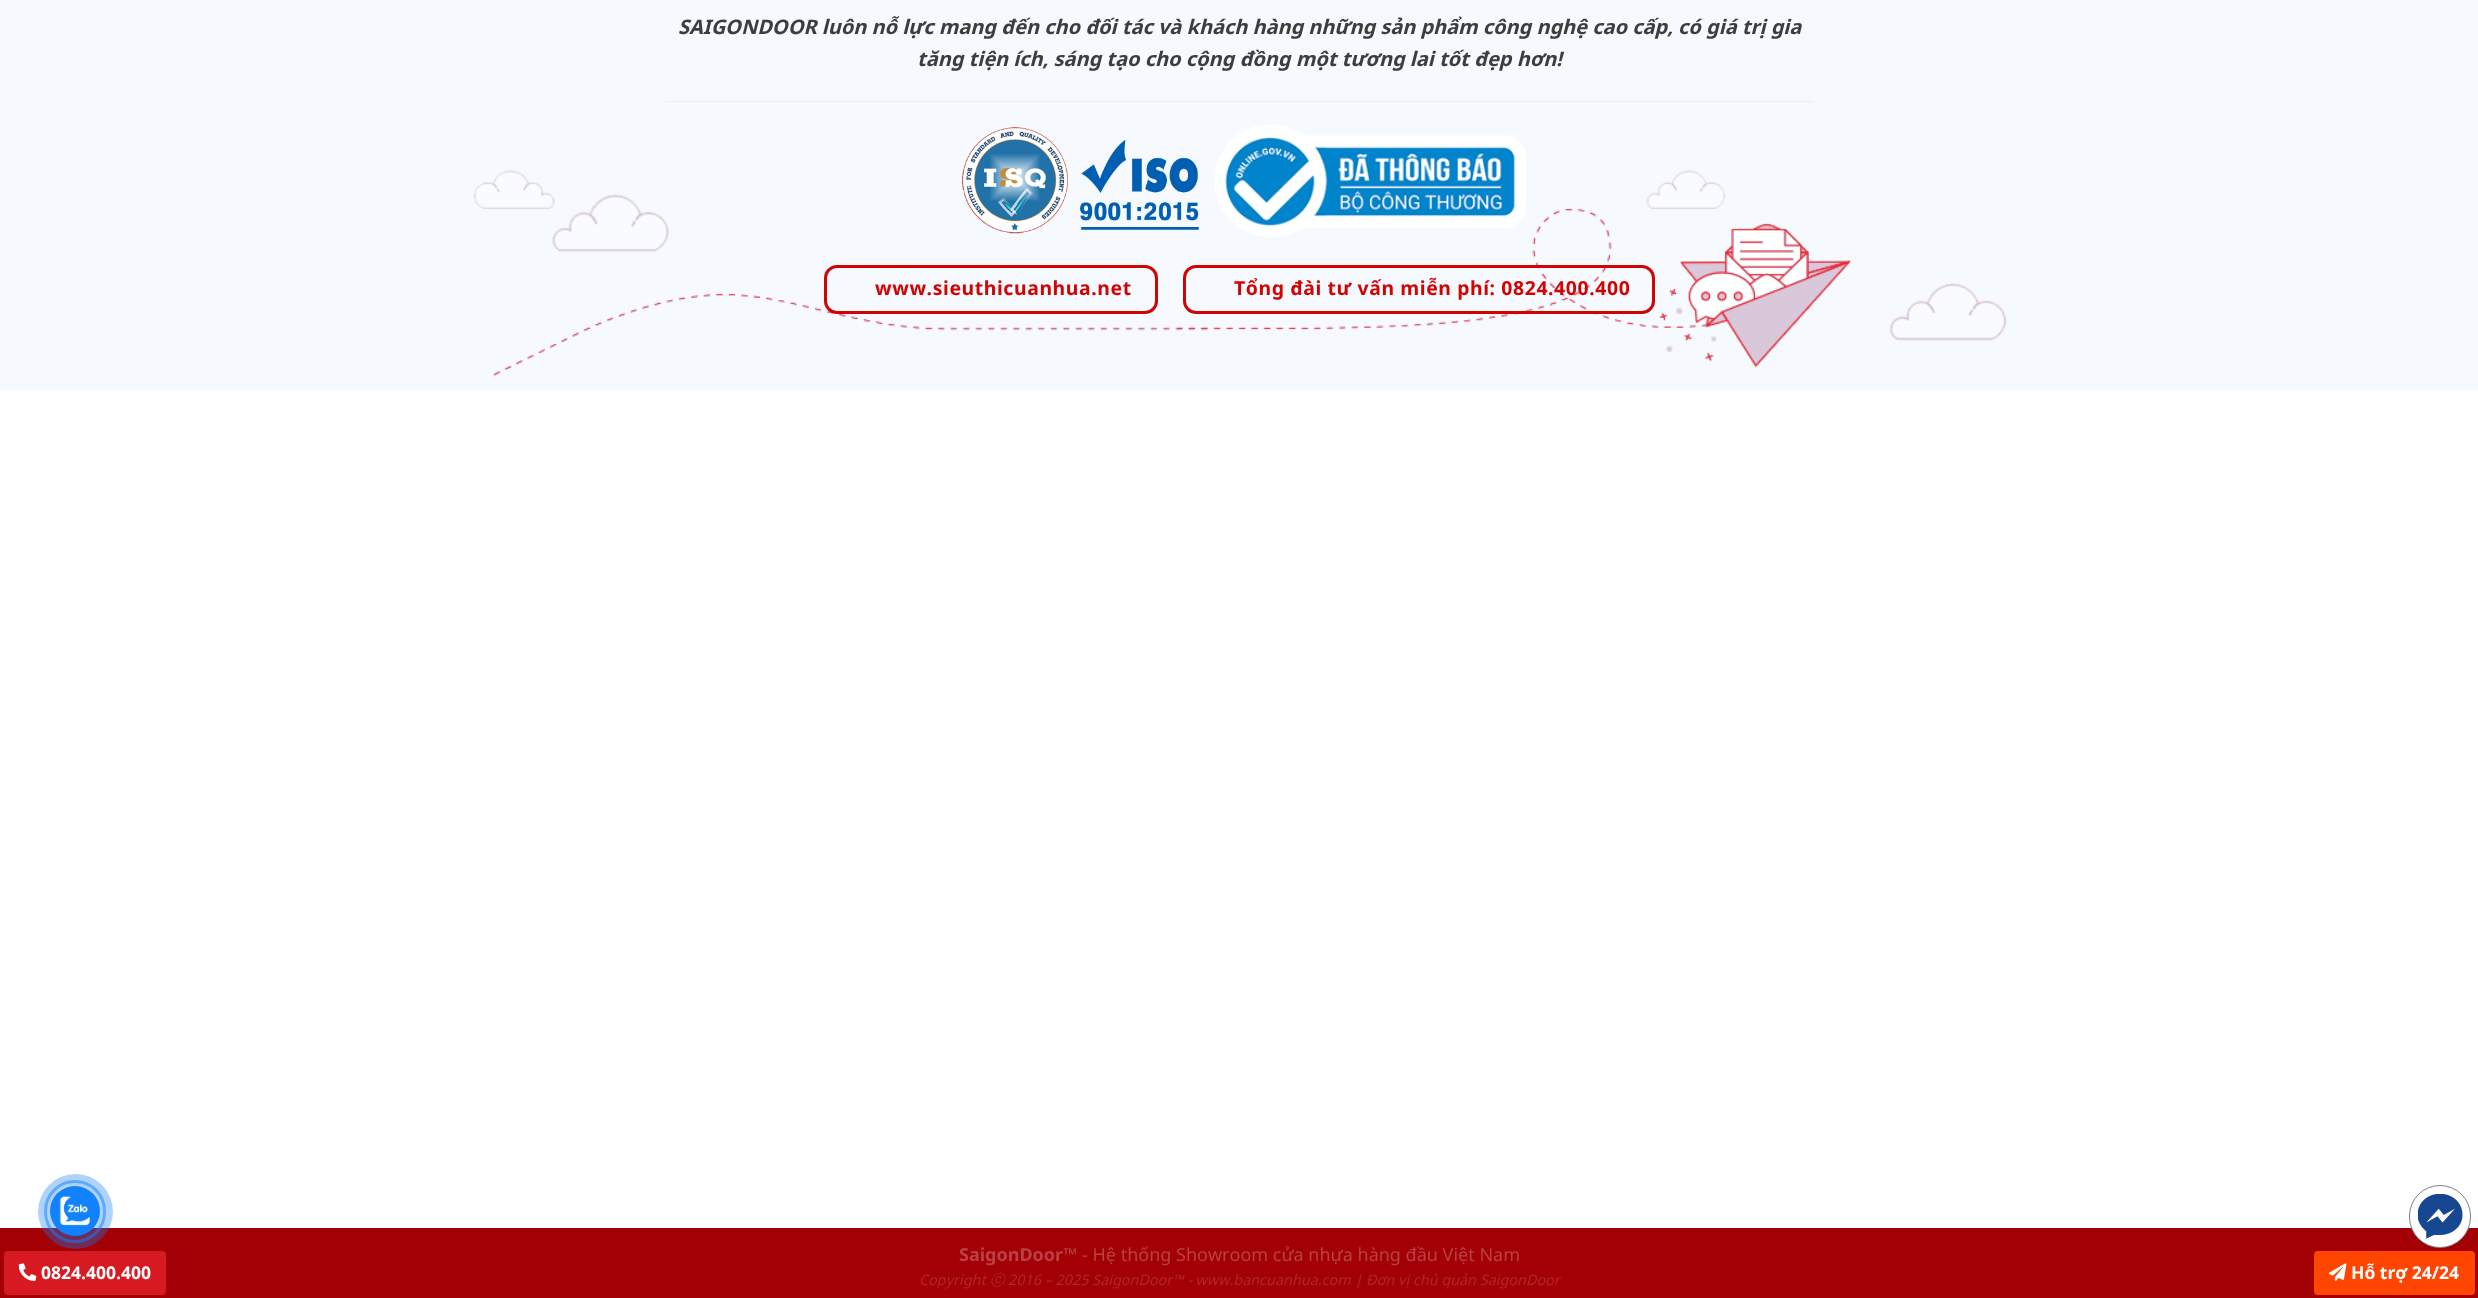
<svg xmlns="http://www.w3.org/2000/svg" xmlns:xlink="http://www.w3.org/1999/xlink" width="2478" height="1298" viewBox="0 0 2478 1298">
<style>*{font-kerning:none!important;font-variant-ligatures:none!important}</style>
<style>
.cls-1{font:italic bold 20px Noto Sans;fill:#3d3d3d}
.cls-2{font:bold 19.4px Noto Sans;letter-spacing:0.6px;fill:#d10404}
.cls-3{font:bold 18px Noto Sans;fill:#ba4044}
.cls-4{font:18px Noto Sans;fill:#ba4044}
.cls-5{font:italic 14.4px Noto Sans;fill:#b0272b}
.cls-6{font:italic 500 14.4px WenQuanYi Zen Hei;fill:#b0272b}
.cls-7{font:bold 17.5px Noto Sans;fill:#ffffff}
</style>
<rect width="100%" height="100%" fill="#ffffff"/>
<rect fill="#a20005" x="0" y="1228" width="2478" height="70"/>
<rect fill="none" stroke="#1182fc" stroke-opacity="0.5" stroke-width="3" x="45.5" y="1181.5" width="59" height="60" rx="29.5"/>
<circle fill="#1182fc" fill-opacity="0.34" cx="75.5" cy="1211.5" r="37.5"/>
<circle fill="#1182fc" cx="75" cy="1211" r="25"/>
<image xlink:href="image0.png" x="59" y="1196" width="31" height="30"/>
<rect fill="#f6fafe" x="0" y="0" width="2478" height="390"/>
<image xlink:href="image1.png" x="473" y="170" width="1534" height="206"/>
<rect fill="#eaeef1" x="665" y="101" width="1149" height="1"/>
<image xlink:href="image2.png" x="962" y="127" width="237" height="107"/>
<image xlink:href="image3.png" x="1214" y="125" width="312" height="112"/>
<rect fill="none" stroke="#d10404" stroke-width="3" x="825.5" y="266.5" width="331" height="46" rx="11.5"/>
<rect fill="none" stroke="#d10404" stroke-width="3" x="1184.5" y="266.5" width="469" height="46" rx="11.5"/>
<rect fill="#ffffff" stroke="#808080" x="2409.5" y="1185.5" width="61" height="62" rx="30.5"/>
<image xlink:href="image4.png" x="2418" y="1194" width="45" height="45"/>
<rect fill="#d71921" x="4" y="1251" width="162" height="44" rx="4"/>
<image xlink:href="image5.png" x="18" y="1263" width="19" height="18"/>
<rect fill="#ff4500" x="2314" y="1251" width="161" height="44" rx="4"/>
<image xlink:href="image6.png" x="2328" y="1263" width="19" height="18"/>
<text class="cls-1" x="678" y="34">SAIGONDOOR luôn nỗ lực mang đến cho đối tác và khách hàng những sản phẩm công nghệ cao cấp, có giá trị gia</text>
<text class="cls-1" x="917" y="66">tăng tiện ích, sáng tạo cho cộng đồng một tương lai tốt đẹp hơn!</text>
<text class="cls-2" x="875" y="295">www.sieuthicuanhua.net</text>
<text class="cls-2" x="1234" y="295">Tổng đài tư vấn miễn phí: 0824.400.400</text>
<text class="cls-3" x="959" y="1261">SaigonDoor™</text>
<text class="cls-4" x="1082" y="1261">- Hệ thống Showroom cửa nhựa hàng đầu Việt Nam</text>
<text class="cls-5" x="919" y="1285">Copyright</text>
<text class="cls-6" x="990" y="1285">ⓒ</text>
<text class="cls-5" x="1008" y="1285">2016 – 2025 SaigonDoor™ - www.bancuanhua.com | Đơn vị chủ quản SaigonDoor</text>
<text class="cls-7" x="41" y="1279">0824.400.400</text>
<text class="cls-7" x="2351" y="1279">Hỗ trợ 24/24</text>
</svg>
